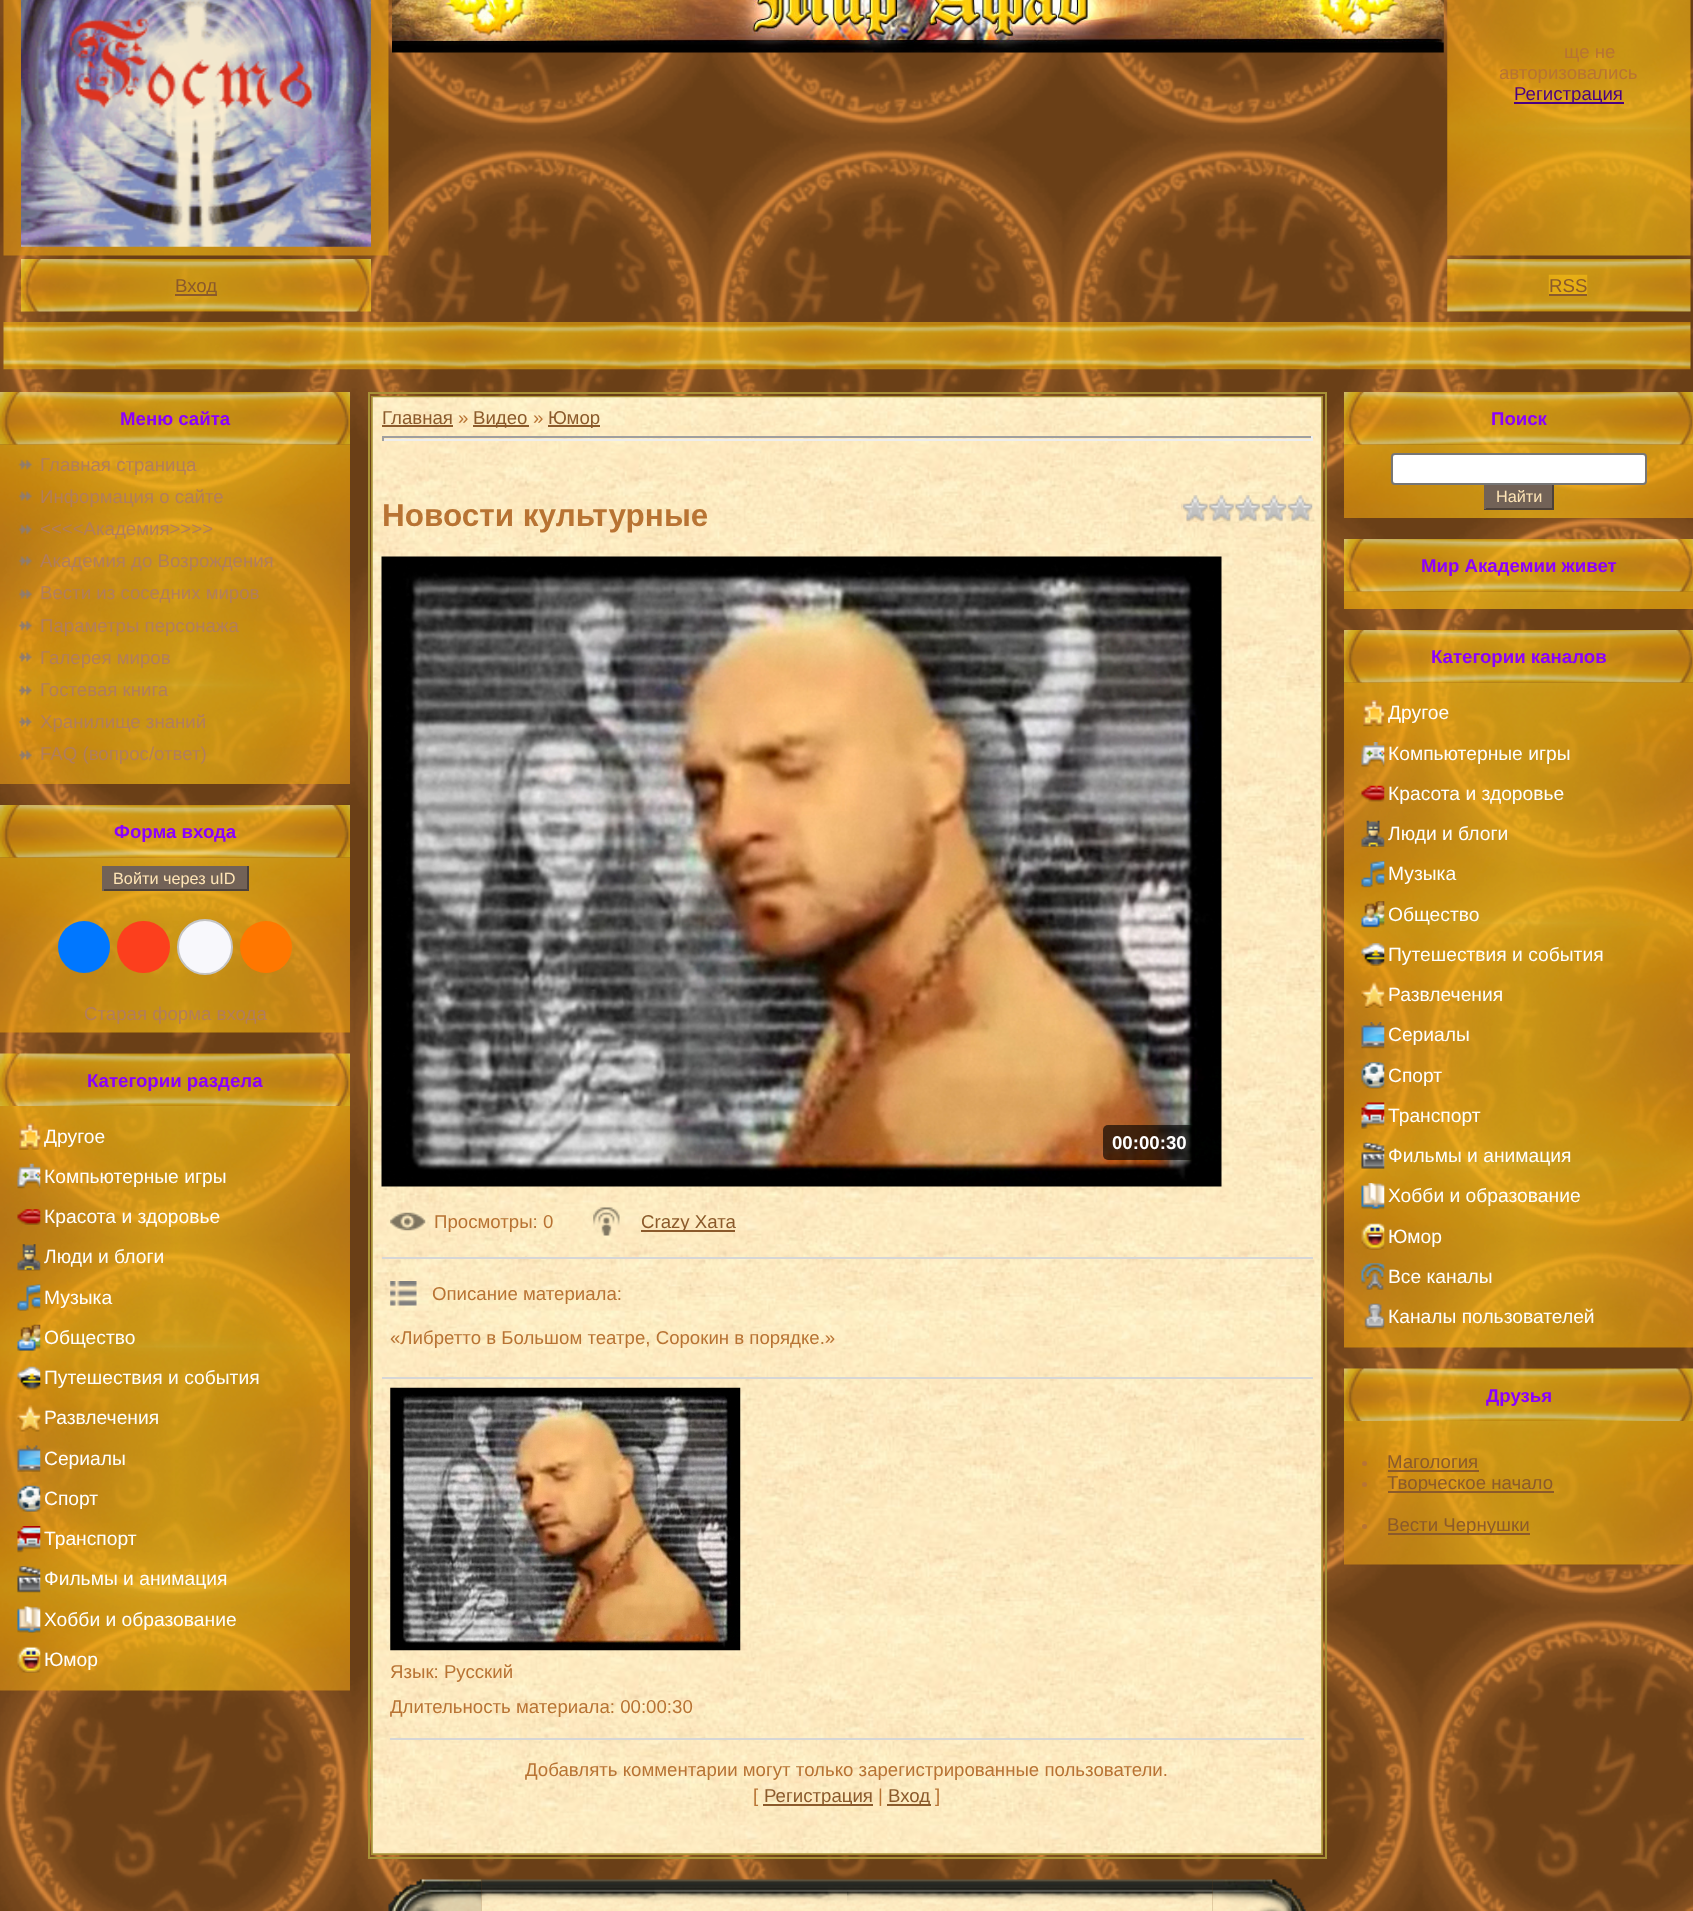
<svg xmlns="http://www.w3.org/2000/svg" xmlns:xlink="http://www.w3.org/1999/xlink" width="1693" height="1911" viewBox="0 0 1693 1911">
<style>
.cls-1{font:18.65px Liberation Sans;fill:#b87333}
.cls-2{font:18.65px Liberation Sans;fill:#4b0082}
.cls-3{font:18.65px Liberation Sans;fill:#8b5a2b}
.cls-4{font:bold 18.65px Liberation Sans;fill:#8b00ff}
.cls-5{font:18.65px Liberation Sans;fill:#b27d5d}
.cls-6{font:16.25px Liberation Sans;fill:#ffe5b6}
.cls-7{font:19.25px Liberation Sans;fill:#ffffff}
.cls-8{font:bold 31.5px Liberation Sans;fill:#b87333}
.cls-9{font:bold 18.65px Liberation Sans;fill:#ffffff}
</style>
<rect width="100%" height="100%" fill="#ffffff"/>
<image xlink:href="image0.png" x="0" y="0" width="1693" height="1911"/>
<image xlink:href="image1.png" x="392" y="0" width="1052" height="53"/>
<image xlink:href="image2.png" x="3" y="0" width="386" height="256"/>
<image xlink:href="image3.png" x="21" y="0" width="350" height="247"/>
<image xlink:href="image4.png" x="1447" y="0" width="244" height="256"/>
<rect fill="#4b0082" x="1514" y="102" width="110" height="2"/>
<image xlink:href="image5.png" x="21" y="259" width="350" height="53"/>
<rect fill="#8b5a2b" x="175" y="294" width="42" height="2"/>
<image xlink:href="image6.png" x="1447" y="259" width="244" height="53"/>
<image xlink:href="image7.png" x="1548" y="274" width="40" height="22"/>
<rect fill="#8b5a2b" x="1549" y="294" width="38" height="2"/>
<image xlink:href="image8.png" x="3" y="322" width="1688" height="48"/>
<image xlink:href="image9.png" x="0" y="392" width="350" height="53"/>
<image xlink:href="image10.png" x="0" y="444" width="350" height="340"/>
<image xlink:href="image11.png" x="18" y="459" width="14" height="11"/>
<image xlink:href="image12.png" x="18" y="491" width="14" height="10"/>
<image xlink:href="image13.png" x="18" y="524" width="14" height="11"/>
<image xlink:href="image14.png" x="18" y="556" width="14" height="10"/>
<image xlink:href="image15.png" x="19" y="589" width="13" height="10"/>
<image xlink:href="image16.png" x="18" y="621" width="14" height="10"/>
<image xlink:href="image17.png" x="19" y="652" width="13" height="10"/>
<image xlink:href="image18.png" x="18" y="685" width="14" height="11"/>
<image xlink:href="image19.png" x="18" y="717" width="14" height="10"/>
<image xlink:href="image20.png" x="19" y="750" width="13" height="10"/>
<image xlink:href="image21.png" x="0" y="805" width="350" height="53"/>
<image xlink:href="image22.png" x="0" y="857" width="350" height="176"/>
<rect fill="#726257" x="104" y="866" width="143" height="23"/>
<rect fill="#4c413a" x="247" y="866" width="2" height="25"/>
<rect fill="#4c413a" x="102" y="889" width="147" height="2"/>
<rect fill="#726257" x="102" y="866" width="2" height="25"/>
<circle fill="#0077ff" cx="84" cy="947" r="26"/>
<rect fill="#fc3f1d" x="117" y="921" width="53" height="52" rx="26"/>
<circle fill="#f8f8fc" stroke="#c4c4c4" stroke-width="2" cx="205" cy="947" r="27"/>
<circle fill="#ff7700" cx="266" cy="947" r="26"/>
<image xlink:href="image23.png" x="0" y="1053" width="350" height="53"/>
<image xlink:href="image24.png" x="0" y="1106" width="350" height="585"/>
<image xlink:href="image25.png" x="19" y="1123" width="22" height="27"/>
<image xlink:href="image26.png" x="17" y="1163" width="24" height="26"/>
<image xlink:href="image27.png" x="17" y="1209" width="24" height="16"/>
<image xlink:href="image28.png" x="17" y="1244" width="24" height="27"/>
<image xlink:href="image29.png" x="17" y="1284" width="24" height="27"/>
<image xlink:href="image30.png" x="17" y="1324" width="24" height="27"/>
<image xlink:href="image31.png" x="17" y="1366" width="24" height="24"/>
<image xlink:href="image32.png" x="17" y="1405" width="24" height="27"/>
<image xlink:href="image33.png" x="17" y="1445" width="24" height="27"/>
<image xlink:href="image34.png" x="17" y="1485" width="24" height="27"/>
<image xlink:href="image35.png" x="17" y="1526" width="24" height="27"/>
<image xlink:href="image36.png" x="17" y="1566" width="24" height="27"/>
<image xlink:href="image37.png" x="17" y="1606" width="24" height="27"/>
<image xlink:href="image38.png" x="17" y="1646" width="24" height="27"/>
<rect fill="none" stroke="#a89236" stroke-width="2" x="369" y="393" width="957" height="1465"/>
<rect fill="none" stroke="#a89236" stroke-width="2" x="372" y="397" width="950" height="1457"/>
<image xlink:href="image39.png" x="372" y="397" width="950" height="1457"/>
<rect fill="#8b5a2b" x="382" y="425" width="71" height="2"/>
<rect fill="#8b5a2b" x="473" y="425" width="56" height="2"/>
<rect fill="#8b5a2b" x="548" y="425" width="52" height="2"/>
<rect fill="#9f9f9f" x="382" y="436" width="931" height="2"/>
<rect fill="#eeeeee" x="1311" y="436" width="2" height="5"/>
<rect fill="#eeeeee" x="382" y="439" width="931" height="2"/>
<rect fill="#9f9f9f" x="382" y="436" width="2" height="5"/>
<image xlink:href="image40.png" x="1181" y="495" width="132" height="27"/>
<image xlink:href="image41.png" x="381" y="556" width="841" height="631"/>
<rect fill="#000000" fill-opacity="0.63" x="1103" y="1125" width="92" height="35" rx="5"/>
<image xlink:href="image42.png" x="390" y="1212" width="36" height="19"/>
<image xlink:href="image43.png" x="593" y="1207" width="27" height="29"/>
<rect fill="#8b5a2b" x="641" y="1230" width="94" height="2"/>
<rect fill="#d6d6d6" x="382" y="1257" width="931" height="2"/>
<image xlink:href="image44.png" x="390" y="1281" width="27" height="25"/>
<rect fill="#d6d6d6" x="382" y="1377" width="931" height="2"/>
<image xlink:href="image45.png" x="390" y="1387" width="351" height="264"/>
<rect fill="#d6d6d6" x="390" y="1738" width="914" height="2"/>
<rect fill="#8b5a2b" x="763" y="1804" width="110" height="2"/>
<rect fill="#8b5a2b" x="887" y="1804" width="44" height="2"/>
<image xlink:href="image46.png" x="1344" y="392" width="349" height="53"/>
<image xlink:href="image47.png" x="1344" y="444" width="349" height="74"/>
<rect fill="#ffffff" stroke="#767676" stroke-width="2" x="1392" y="454" width="254" height="30" rx="3"/>
<rect fill="#726257" x="1486" y="485" width="66" height="23"/>
<rect fill="#4c413a" x="1552" y="485" width="2" height="24"/>
<rect fill="#4c413a" x="1484" y="508" width="70" height="2"/>
<rect fill="#726257" x="1484" y="485" width="2" height="24"/>
<image xlink:href="image48.png" x="1344" y="539" width="349" height="53"/>
<image xlink:href="image49.png" x="1344" y="591" width="349" height="18"/>
<image xlink:href="image50.png" x="1344" y="630" width="349" height="53"/>
<image xlink:href="image51.png" x="1344" y="682" width="349" height="666"/>
<image xlink:href="image52.png" x="1363" y="700" width="22" height="27"/>
<image xlink:href="image53.png" x="1361" y="742" width="24" height="25"/>
<image xlink:href="image54.png" x="1361" y="785" width="24" height="17"/>
<image xlink:href="image55.png" x="1361" y="820" width="24" height="27"/>
<image xlink:href="image56.png" x="1361" y="861" width="24" height="27"/>
<image xlink:href="image57.png" x="1361" y="901" width="24" height="27"/>
<image xlink:href="image58.png" x="1361" y="943" width="24" height="23"/>
<image xlink:href="image59.png" x="1361" y="982" width="24" height="26"/>
<image xlink:href="image60.png" x="1361" y="1022" width="24" height="27"/>
<image xlink:href="image61.png" x="1361" y="1062" width="24" height="27"/>
<image xlink:href="image62.png" x="1361" y="1102" width="24" height="27"/>
<image xlink:href="image63.png" x="1361" y="1142" width="24" height="27"/>
<image xlink:href="image64.png" x="1361" y="1183" width="24" height="27"/>
<image xlink:href="image65.png" x="1361" y="1223" width="24" height="27"/>
<image xlink:href="image66.png" x="1361" y="1263" width="24" height="27"/>
<image xlink:href="image67.png" x="1364" y="1303" width="21" height="27"/>
<image xlink:href="image68.png" x="1344" y="1368" width="349" height="53"/>
<image xlink:href="image69.png" x="1344" y="1421" width="349" height="144"/>
<circle fill="#b87333" cx="1364.5" cy="1463.5" r="2.5"/>
<rect fill="#8b5a2b" x="1388" y="1470" width="91" height="2"/>
<circle fill="#b87333" cx="1364.5" cy="1484.5" r="2.5"/>
<rect fill="#8b5a2b" x="1388" y="1491" width="166" height="2"/>
<circle fill="#b87333" cx="1364.5" cy="1526.5" r="2.5"/>
<rect fill="#8b5a2b" x="1388" y="1533" width="142" height="2"/>
<image xlink:href="image71.png" x="481" y="1879" width="366" height="32"/>
<image xlink:href="image70.png" x="388" y="1879" width="94" height="32"/>
<image xlink:href="image72.png" x="847" y="1879" width="366" height="32"/>
<image xlink:href="image73.png" x="1212" y="1879" width="94" height="32"/>
<text class="cls-1" x="1564" y="58">ще не</text>
<text class="cls-1" x="1499" y="79">авторизовались</text>
<text class="cls-2" x="1514" y="100">Регистрация</text>
<text class="cls-3" x="175" y="292">Вход</text>
<text class="cls-3" x="1549" y="292">RSS</text>
<text class="cls-4" x="120" y="425">Меню сайта</text>
<text class="cls-5"><tspan x="40" y="471">Главная страница</tspan><tspan x="40" y="503">Информация о сайте</tspan><tspan x="40" y="535">&lt;&lt;&lt;&lt;Академия&gt;&gt;&gt;&gt;</tspan><tspan x="40" y="567">Академия до Возрождения</tspan><tspan x="40" y="599">Вести из соседних миров</tspan><tspan x="40" y="632">Параметры персонажа</tspan><tspan x="40" y="664">Галерея миров</tspan><tspan x="40" y="696">Гостевая книга</tspan><tspan x="40" y="728">Хранилище знаний</tspan><tspan x="40" y="760">FAQ (вопрос/ответ)</tspan></text>
<text class="cls-4" x="114" y="838">Форма входа</text>
<text class="cls-6" x="113" y="884">Войти через uID</text>
<text class="cls-5" x="84" y="1020">Старая форма входа</text>
<text class="cls-4" x="87" y="1087">Категории раздела</text>
<text class="cls-7" x="44" y="1143">Другое</text>
<text class="cls-7" x="44" y="1183">Компьютерные игры</text>
<text class="cls-7" x="44" y="1223">Красота и здоровье</text>
<text class="cls-7" x="44" y="1263">Люди и блоги</text>
<text class="cls-7" x="44" y="1304">Музыка</text>
<text class="cls-7" x="44" y="1344">Общество</text>
<text class="cls-7" x="44" y="1384">Путешествия и события</text>
<text class="cls-7" x="44" y="1424">Развлечения</text>
<text class="cls-7" x="44" y="1465">Сериалы</text>
<text class="cls-7" x="44" y="1505">Спорт</text>
<text class="cls-7" x="44" y="1545">Транспорт</text>
<text class="cls-7" x="44" y="1585">Фильмы и анимация</text>
<text class="cls-7" x="44" y="1626">Хобби и образование</text>
<text class="cls-7" x="44" y="1666">Юмор</text>
<text class="cls-3" x="382" y="424">Главная</text>
<text class="cls-1" x="458" y="424">»</text>
<text class="cls-3" x="473" y="424">Видео</text>
<text class="cls-1" x="533" y="424">»</text>
<text class="cls-3" x="548" y="424">Юмор</text>
<text class="cls-8" x="382" y="526">Новости культурные</text>
<text class="cls-9" x="1112" y="1149">00:00:30</text>
<text class="cls-1" x="434" y="1228">Просмотры: 0</text>
<text class="cls-3" x="641" y="1228">Crazy Хата</text>
<text class="cls-1" x="432" y="1300">Описание материала:</text>
<text class="cls-1" x="390" y="1344">«Либретто в Большом театре, Сорокин в порядке.»</text>
<text class="cls-1"><tspan x="390" y="1678">Язык: Русский</tspan><tspan x="390" y="1713">Длительность материала: 00:00:30</tspan></text>
<text class="cls-1" x="525" y="1776">Добавлять комментарии могут только зарегистрированные пользователи.</text>
<text class="cls-1" x="753" y="1802">[</text>
<text class="cls-3" x="764" y="1802">Регистрация</text>
<text class="cls-1" x="878" y="1802">|</text>
<text class="cls-3" x="888" y="1802">Вход</text>
<text class="cls-1" x="935" y="1802">]</text>
<text class="cls-4" x="1491" y="425">Поиск</text>
<text class="cls-6" x="1496" y="502">Найти</text>
<text class="cls-4" x="1421" y="572">Мир Академии живет</text>
<text class="cls-4" x="1431" y="663">Категории каналов</text>
<text class="cls-7" x="1388" y="719">Другое</text>
<text class="cls-7" x="1388" y="760">Компьютерные игры</text>
<text class="cls-7" x="1388" y="800">Красота и здоровье</text>
<text class="cls-7" x="1388" y="840">Люди и блоги</text>
<text class="cls-7" x="1388" y="880">Музыка</text>
<text class="cls-7" x="1388" y="921">Общество</text>
<text class="cls-7" x="1388" y="961">Путешествия и события</text>
<text class="cls-7" x="1388" y="1001">Развлечения</text>
<text class="cls-7" x="1388" y="1041">Сериалы</text>
<text class="cls-7" x="1388" y="1082">Спорт</text>
<text class="cls-7" x="1388" y="1122">Транспорт</text>
<text class="cls-7" x="1388" y="1162">Фильмы и анимация</text>
<text class="cls-7" x="1388" y="1202">Хобби и образование</text>
<text class="cls-7" x="1388" y="1243">Юмор</text>
<text class="cls-7" x="1388" y="1283">Все каналы</text>
<text class="cls-7" x="1388" y="1323">Каналы пользователей</text>
<text class="cls-4" x="1486" y="1402">Друзья</text>
<text class="cls-3"><tspan x="1387" y="1468">Магология</tspan><tspan x="1387" y="1489">Творческое начало</tspan></text>
<text class="cls-3" x="1387" y="1531">Вести Чернушки</text>
</svg>
